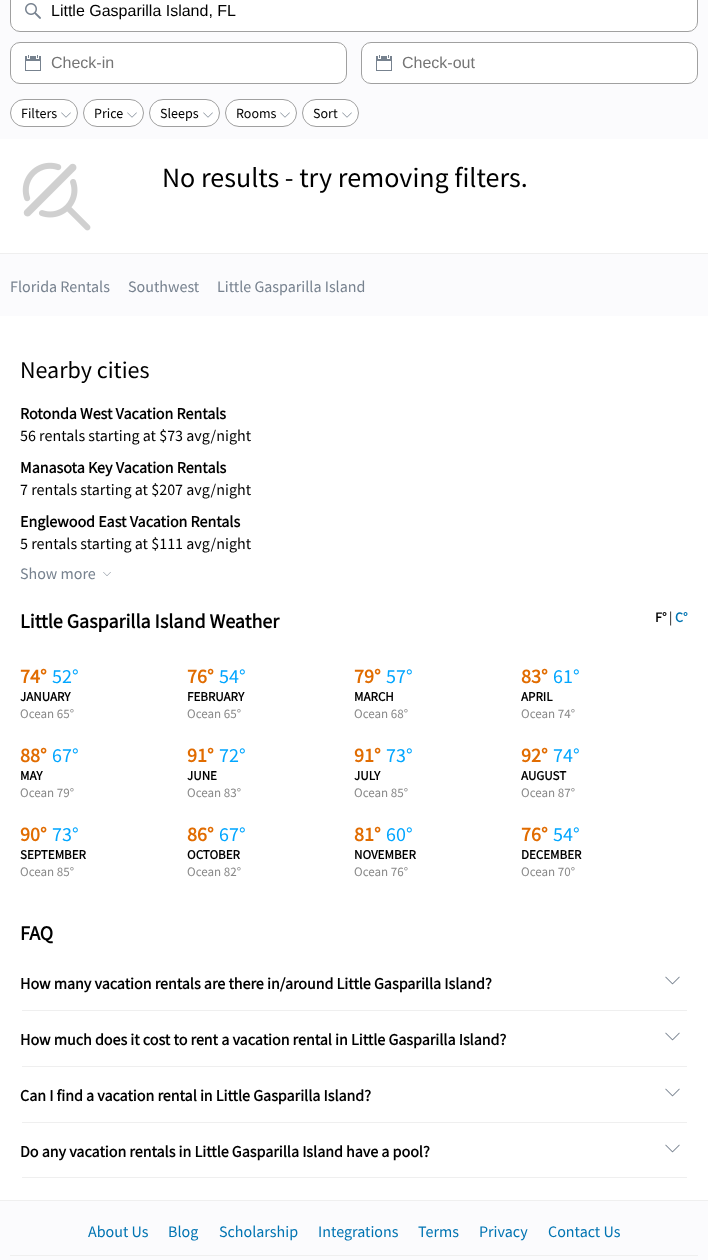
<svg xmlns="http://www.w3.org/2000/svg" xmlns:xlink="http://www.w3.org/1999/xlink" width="708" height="1260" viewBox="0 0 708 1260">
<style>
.cls-1{font:16px Liberation Sans;fill:#000000}
.cls-2{font:16px Liberation Sans;fill:#757575}
.cls-3{font:14px Source Sans Pro;fill:#000000}
.cls-4{font:28px Source Sans Pro;fill:#000000}
.cls-5{font:16px Source Sans Pro;fill:#77828f}
.cls-6{font:24px Source Sans Pro;fill:#000000}
.cls-7{font:bold 16px Source Sans Pro;fill:#000000}
.cls-8{font:16px Source Sans Pro;fill:#000000}
.cls-9{font:bold 20px Source Sans Pro;fill:#000000}
.cls-10{font:bold 14px Source Sans Pro;fill:#000000}
.cls-11{font:bold 14px Source Sans Pro;fill:#0174b2}
.cls-12{font:bold 20px Source Sans Pro;fill:#e16c00}
.cls-13{font:20px Source Sans Pro;fill:#02a6ff}
.cls-14{font:bold 13px Source Sans Pro;fill:#000000}
.cls-15{font:13px Source Sans Pro;fill:#898989}
.cls-16{font:16px Source Sans Pro;fill:#0174b2}
</style>
<rect width="100%" height="100%" fill="#ffffff"/>
<rect fill="#fbfbfd" x="0" y="0" width="708" height="139"/>
<rect fill="#ffffff" x="10" y="-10" width="688" height="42" rx="10"/>
<image xlink:href="image0.png" x="25" y="3" width="16" height="16"/>
<rect fill="none" stroke="#a0a0a0" x="10.5" y="-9.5" width="687" height="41" rx="9.5"/>
<rect fill="#ffffff" x="10" y="42" width="337" height="42" rx="10"/>
<image xlink:href="image1.png" x="25" y="55" width="16" height="16"/>
<rect fill="none" stroke="#a0a0a0" x="10.5" y="42.5" width="336" height="41" rx="9.5"/>
<rect fill="#ffffff" x="361" y="42" width="337" height="42" rx="10"/>
<image xlink:href="image1.png" x="376" y="55" width="16" height="16"/>
<rect fill="none" stroke="#a0a0a0" x="361.5" y="42.5" width="336" height="41" rx="9.5"/>
<rect fill="#ffffff" stroke="#a0a0a0" x="10.5" y="99.5" width="67" height="27" rx="13.5"/>
<image xlink:href="image2.png" x="61" y="112" width="10" height="6"/>
<rect fill="#ffffff" stroke="#a0a0a0" x="83.5" y="99.5" width="60" height="27" rx="13.5"/>
<image xlink:href="image2.png" x="127" y="112" width="10" height="6"/>
<rect fill="#ffffff" stroke="#a0a0a0" x="149.5" y="99.5" width="70" height="27" rx="13.5"/>
<image xlink:href="image2.png" x="203" y="112" width="10" height="6"/>
<rect fill="#ffffff" stroke="#a0a0a0" x="225.5" y="99.5" width="71" height="27" rx="13.5"/>
<image xlink:href="image2.png" x="280" y="112" width="10" height="6"/>
<rect fill="#ffffff" stroke="#a0a0a0" x="302.5" y="99.5" width="56" height="27" rx="13.5"/>
<image xlink:href="image2.png" x="342" y="112" width="10" height="6"/>
<image xlink:href="image3.png" x="22" y="162" width="69" height="69"/>
<rect fill="#fbfbfd" x="0" y="254" width="708" height="62"/>
<rect fill="#efefef" x="0" y="253" width="708" height="1"/>
<image xlink:href="image4.png" x="103" y="572" width="8" height="4"/>
<rect fill="#efefef" x="22" y="1010" width="665" height="1"/>
<image xlink:href="image5.png" x="665" y="976" width="15" height="9"/>
<rect fill="#efefef" x="22" y="1066" width="665" height="1"/>
<image xlink:href="image5.png" x="665" y="1032" width="15" height="9"/>
<rect fill="#efefef" x="22" y="1122" width="665" height="1"/>
<image xlink:href="image5.png" x="665" y="1088" width="15" height="9"/>
<rect fill="#efefef" x="22" y="1177" width="665" height="1"/>
<image xlink:href="image5.png" x="665" y="1144" width="15" height="9"/>
<rect fill="#fbfbfd" x="0" y="1201" width="708" height="59"/>
<rect fill="#efefef" x="0" y="1200" width="708" height="1"/>
<rect fill="#efefef" x="10" y="1255" width="688" height="1"/>
<text class="cls-1" x="51" y="16">Little Gasparilla Island, FL</text>
<text class="cls-2" x="51" y="68">Check-in</text>
<text class="cls-2" x="402" y="68">Check-out</text>
<text class="cls-3" x="21" y="118">Filters</text>
<text class="cls-3" x="94" y="118">Price</text>
<text class="cls-3" x="160" y="118">Sleeps</text>
<text class="cls-3" x="236" y="118">Rooms</text>
<text class="cls-3" x="313" y="118">Sort</text>
<text class="cls-4" x="162" y="187">No results - try removing filters.</text>
<text class="cls-5" x="10" y="292">Florida Rentals</text>
<text class="cls-5" x="128" y="292">Southwest</text>
<text class="cls-5" x="217" y="292">Little Gasparilla Island</text>
<text class="cls-6" x="20" y="378">Nearby cities</text>
<text class="cls-7" x="20" y="419">Rotonda West Vacation Rentals</text>
<text class="cls-8" x="20" y="441">56 rentals starting at $73 avg/night</text>
<text class="cls-7" x="20" y="473">Manasota Key Vacation Rentals</text>
<text class="cls-8" x="20" y="495">7 rentals starting at $207 avg/night</text>
<text class="cls-7" x="20" y="527">Englewood East Vacation Rentals</text>
<text class="cls-8" x="20" y="549">5 rentals starting at $111 avg/night</text>
<text class="cls-5" x="20" y="579">Show more</text>
<text class="cls-9" x="20" y="628">Little Gasparilla Island Weather</text>
<text class="cls-10" x="655" y="622">F°</text>
<text class="cls-3" x="669" y="622">|</text>
<text class="cls-11" x="675" y="622">C°</text>
<text class="cls-12" x="20" y="683">74°</text>
<text class="cls-13" x="52" y="683">52°</text>
<text class="cls-14" x="20" y="701">JANUARY</text>
<text class="cls-15" x="20" y="718">Ocean 65°</text>
<text class="cls-12" x="187" y="683">76°</text>
<text class="cls-13" x="219" y="683">54°</text>
<text class="cls-14" x="187" y="701">FEBRUARY</text>
<text class="cls-15" x="187" y="718">Ocean 65°</text>
<text class="cls-12" x="354" y="683">79°</text>
<text class="cls-13" x="386" y="683">57°</text>
<text class="cls-14" x="354" y="701">MARCH</text>
<text class="cls-15" x="354" y="718">Ocean 68°</text>
<text class="cls-12" x="521" y="683">83°</text>
<text class="cls-13" x="553" y="683">61°</text>
<text class="cls-14" x="521" y="701">APRIL</text>
<text class="cls-15" x="521" y="718">Ocean 74°</text>
<text class="cls-12" x="20" y="762">88°</text>
<text class="cls-13" x="52" y="762">67°</text>
<text class="cls-14" x="20" y="780">MAY</text>
<text class="cls-15" x="20" y="797">Ocean 79°</text>
<text class="cls-12" x="187" y="762">91°</text>
<text class="cls-13" x="219" y="762">72°</text>
<text class="cls-14" x="187" y="780">JUNE</text>
<text class="cls-15" x="187" y="797">Ocean 83°</text>
<text class="cls-12" x="354" y="762">91°</text>
<text class="cls-13" x="386" y="762">73°</text>
<text class="cls-14" x="354" y="780">JULY</text>
<text class="cls-15" x="354" y="797">Ocean 85°</text>
<text class="cls-12" x="521" y="762">92°</text>
<text class="cls-13" x="553" y="762">74°</text>
<text class="cls-14" x="521" y="780">AUGUST</text>
<text class="cls-15" x="521" y="797">Ocean 87°</text>
<text class="cls-12" x="20" y="841">90°</text>
<text class="cls-13" x="52" y="841">73°</text>
<text class="cls-14" x="20" y="859">SEPTEMBER</text>
<text class="cls-15" x="20" y="876">Ocean 85°</text>
<text class="cls-12" x="187" y="841">86°</text>
<text class="cls-13" x="219" y="841">67°</text>
<text class="cls-14" x="187" y="859">OCTOBER</text>
<text class="cls-15" x="187" y="876">Ocean 82°</text>
<text class="cls-12" x="354" y="841">81°</text>
<text class="cls-13" x="386" y="841">60°</text>
<text class="cls-14" x="354" y="859">NOVEMBER</text>
<text class="cls-15" x="354" y="876">Ocean 76°</text>
<text class="cls-12" x="521" y="841">76°</text>
<text class="cls-13" x="553" y="841">54°</text>
<text class="cls-14" x="521" y="859">DECEMBER</text>
<text class="cls-15" x="521" y="876">Ocean 70°</text>
<text class="cls-9" x="20" y="940">FAQ</text>
<text class="cls-7" x="20" y="989">How many vacation rentals are there in/around Little Gasparilla Island?</text>
<text class="cls-7" x="20" y="1045">How much does it cost to rent a vacation rental in Little Gasparilla Island?</text>
<text class="cls-7" x="20" y="1101">Can I find a vacation rental in Little Gasparilla Island?</text>
<text class="cls-7" x="20" y="1157">Do any vacation rentals in Little Gasparilla Island have a pool?</text>
<text class="cls-16" x="88" y="1237">About Us</text>
<text class="cls-16" x="168" y="1237">Blog</text>
<text class="cls-16" x="219" y="1237">Scholarship</text>
<text class="cls-16" x="318" y="1237">Integrations</text>
<text class="cls-16" x="418" y="1237">Terms</text>
<text class="cls-16" x="479" y="1237">Privacy</text>
<text class="cls-16" x="548" y="1237">Contact Us</text>
</svg>
